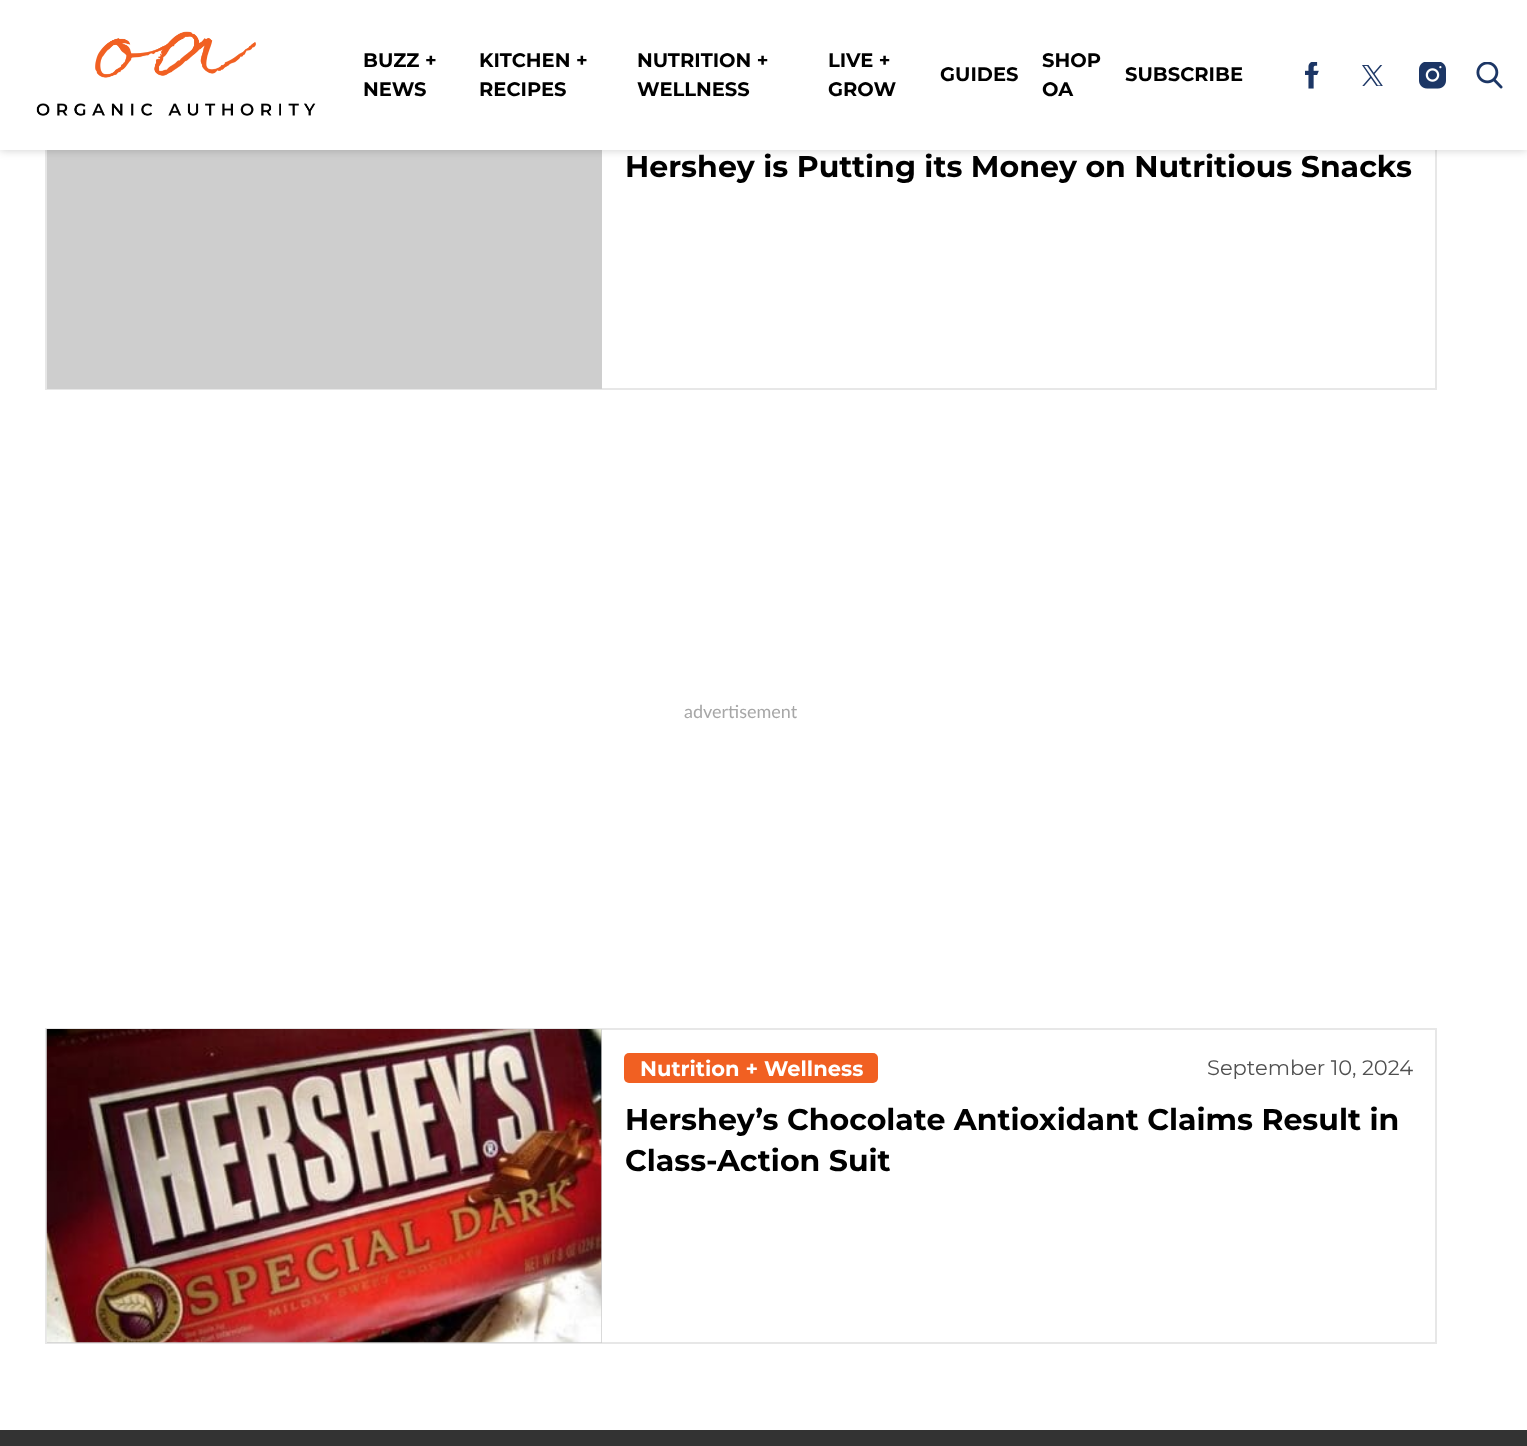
<svg xmlns="http://www.w3.org/2000/svg" xmlns:xlink="http://www.w3.org/1999/xlink" width="1527" height="1446" viewBox="0 0 1527 1446">
<style>
.cls-1{font:bold 19.5px Montserrat;fill:#000000}
.cls-2{font:bold 30px Montserrat;fill:#000000}
.cls-3{font:18px Lato;fill:#a7a7a7}
.cls-4{font:bold 21px Montserrat;fill:#ffffff}
.cls-5{font:21px Montserrat;fill:#505050}
</style>
<rect width="100%" height="100%" fill="#ffffff"/>
<rect fill="none" stroke="#e7e7e7" stroke-width="2" x="46" y="76" width="1390" height="313"/>
<rect fill="#cecece" x="47" y="150" width="555" height="239"/>
<rect fill="#000000" fill-opacity="0.2" filter="blur(5px)" x="0" y="0" width="1527" height="150"/>
<rect fill="#ffffff" x="0" y="0" width="1527" height="150"/>
<image xlink:href="image0.png" x="36" y="31" width="280" height="85"/>
<image xlink:href="image1.png" x="1305" y="62" width="14" height="27"/>
<image xlink:href="image2.png" x="1362" y="65" width="21" height="21"/>
<image xlink:href="image3.png" x="1419" y="62" width="27" height="27"/>
<image xlink:href="image4.png" x="1476" y="62" width="27" height="27"/>
<rect fill="none" stroke="#e7e7e7" stroke-width="2" x="46" y="1029" width="1390" height="314"/>
<rect fill="#cecece" x="47" y="1029" width="555" height="314"/>
<image xlink:href="image5.png" x="46" y="1029" width="556" height="314"/>
<rect fill="#f16022" x="624" y="1053" width="254" height="30" rx="5"/>
<rect fill="#333333" x="0" y="1430" width="1527" height="16"/>
<text class="cls-1"><tspan x="363" y="67">BUZZ +</tspan><tspan x="363" y="96">NEWS</tspan></text>
<text class="cls-1"><tspan x="479" y="67">KITCHEN +</tspan><tspan x="479" y="96">RECIPES</tspan></text>
<text class="cls-1"><tspan x="637" y="67">NUTRITION +</tspan><tspan x="637" y="96">WELLNESS</tspan></text>
<text class="cls-1"><tspan x="828" y="67">LIVE +</tspan><tspan x="828" y="96">GROW</tspan></text>
<text class="cls-1" x="940" y="81">GUIDES</text>
<text class="cls-1"><tspan x="1042" y="67">SHOP</tspan><tspan x="1042" y="96">OA</tspan></text>
<text class="cls-1" x="1125" y="81">SUBSCRIBE</text>
<text class="cls-2" x="625" y="177">Hershey is Putting its Money on Nutritious Snacks</text>
<text class="cls-3" x="684" y="718">advertisement</text>
<text class="cls-4" x="640" y="1076">Nutrition + Wellness</text>
<text class="cls-5" x="1207" y="1075">September 10, 2024</text>
<text class="cls-2"><tspan x="625" y="1130">Hershey’s Chocolate Antioxidant Claims Result in</tspan><tspan x="625" y="1171">Class-Action Suit</tspan></text>
</svg>
